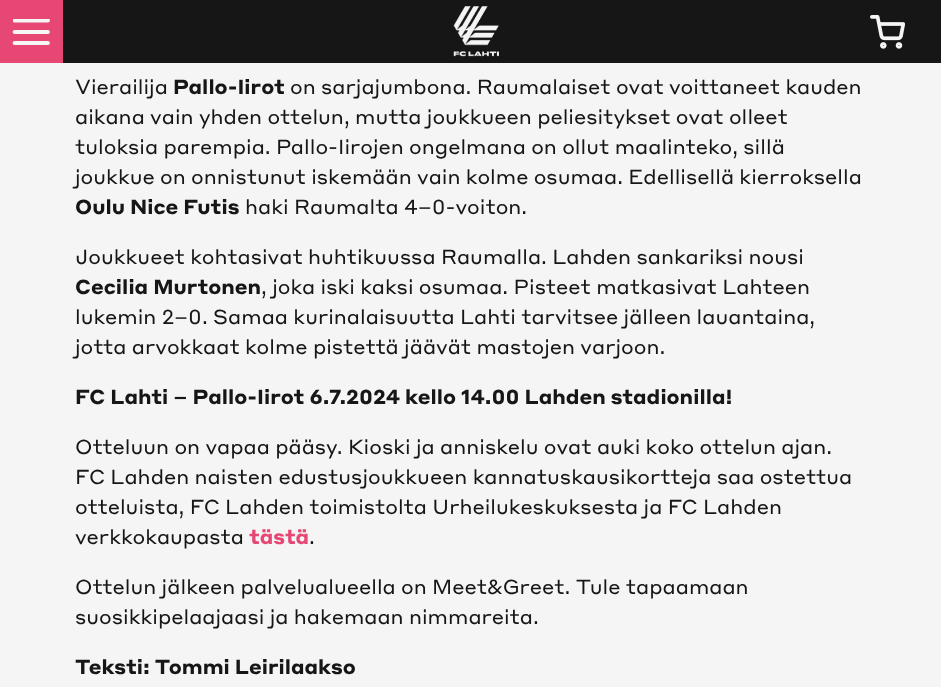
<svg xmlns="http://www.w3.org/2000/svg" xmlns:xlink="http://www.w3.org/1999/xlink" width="941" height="687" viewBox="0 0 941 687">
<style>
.cls-1{font:20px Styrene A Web;fill:#161616}
.cls-2{font:bold 20px Styrene A Web;fill:#161616}
.cls-3{font:bold 20px Styrene A Web;fill:#e64773}
</style>
<defs>
<clipPath id="clip1"><rect x="13" y="19" width="37" height="26"/></clipPath>
</defs>
<rect width="100%" height="100%" fill="#f5f5f5"/>
<rect fill="#161616" x="63" y="0" width="878" height="63"/>
<rect fill="#e64773" x="0" y="0" width="63" height="63"/>
<path fill="none" stroke="#f5f5f5" stroke-width="3.8" stroke-linecap="round" stroke-linejoin="round" d="M14.5 32H48"/>
<g clip-path="url(#clip1)">
<path fill="none" stroke="#f5f5f5" stroke-width="3.8" stroke-linecap="round" stroke-linejoin="round" d="M14.5 20.5H48"/>
</g>
<path fill="none" stroke="#f5f5f5" stroke-width="3.8" stroke-linecap="round" stroke-linejoin="round" d="M14.5 43H48"/>
<image xlink:href="image0.png" x="453" y="6" width="46" height="51"/>
<image xlink:href="image1.png" x="870" y="15" width="35" height="34"/>
<text class="cls-1" x="75" y="94">Vierailija</text>
<text class="cls-2" x="173" y="94">Pallo-Iirot</text>
<text class="cls-1" x="290" y="94">on sarjajumbona. Raumalaiset ovat voittaneet kauden</text>
<text class="cls-1"><tspan x="75" y="124">aikana vain yhden ottelun, mutta joukkueen peliesitykset ovat olleet</tspan><tspan x="75" y="154">tuloksia parempia. Pallo-Iirojen ongelmana on ollut maalinteko, sillä</tspan><tspan x="75" y="184">joukkue on onnistunut iskemään vain kolme osumaa. Edellisellä kierroksella</tspan></text>
<text class="cls-2" x="75" y="214">Oulu Nice Futis</text>
<text class="cls-1" x="245" y="214">haki Raumalta 4–0-voiton.</text>
<text class="cls-1" x="75" y="264">Joukkueet kohtasivat huhtikuussa Raumalla. Lahden sankariksi nousi</text>
<text class="cls-2" x="75" y="294">Cecilia Murtonen</text>
<text class="cls-1" x="261" y="294">, joka iski kaksi osumaa. Pisteet matkasivat Lahteen</text>
<text class="cls-1"><tspan x="75" y="324">lukemin 2–0. Samaa kurinalaisuutta Lahti tarvitsee jälleen lauantaina,</tspan><tspan x="75" y="354">jotta arvokkaat kolme pistettä jäävät mastojen varjoon.</tspan></text>
<text class="cls-2" x="75" y="404">FC Lahti – Pallo-Iirot 6.7.2024 kello 14.00 Lahden stadionilla!</text>
<text class="cls-1"><tspan x="75" y="454">Otteluun on vapaa pääsy. Kioski ja anniskelu ovat auki koko ottelun ajan.</tspan><tspan x="75" y="484">FC Lahden naisten edustusjoukkueen kannatuskausikortteja saa ostettua</tspan><tspan x="75" y="514">otteluista, FC Lahden toimistolta Urheilukeskuksesta ja FC Lahden</tspan><tspan x="75" y="544">verkkokaupasta</tspan></text>
<text class="cls-3" x="249" y="544">tästä</text>
<text class="cls-1" x="309" y="544">.</text>
<text class="cls-1"><tspan x="75" y="594">Ottelun jälkeen palvelualueella on Meet&amp;Greet. Tule tapaamaan</tspan><tspan x="75" y="624">suosikkipelaajaasi ja hakemaan nimmareita.</tspan></text>
<text class="cls-2" x="75" y="674">Teksti: Tommi Leirilaakso</text>
</svg>
